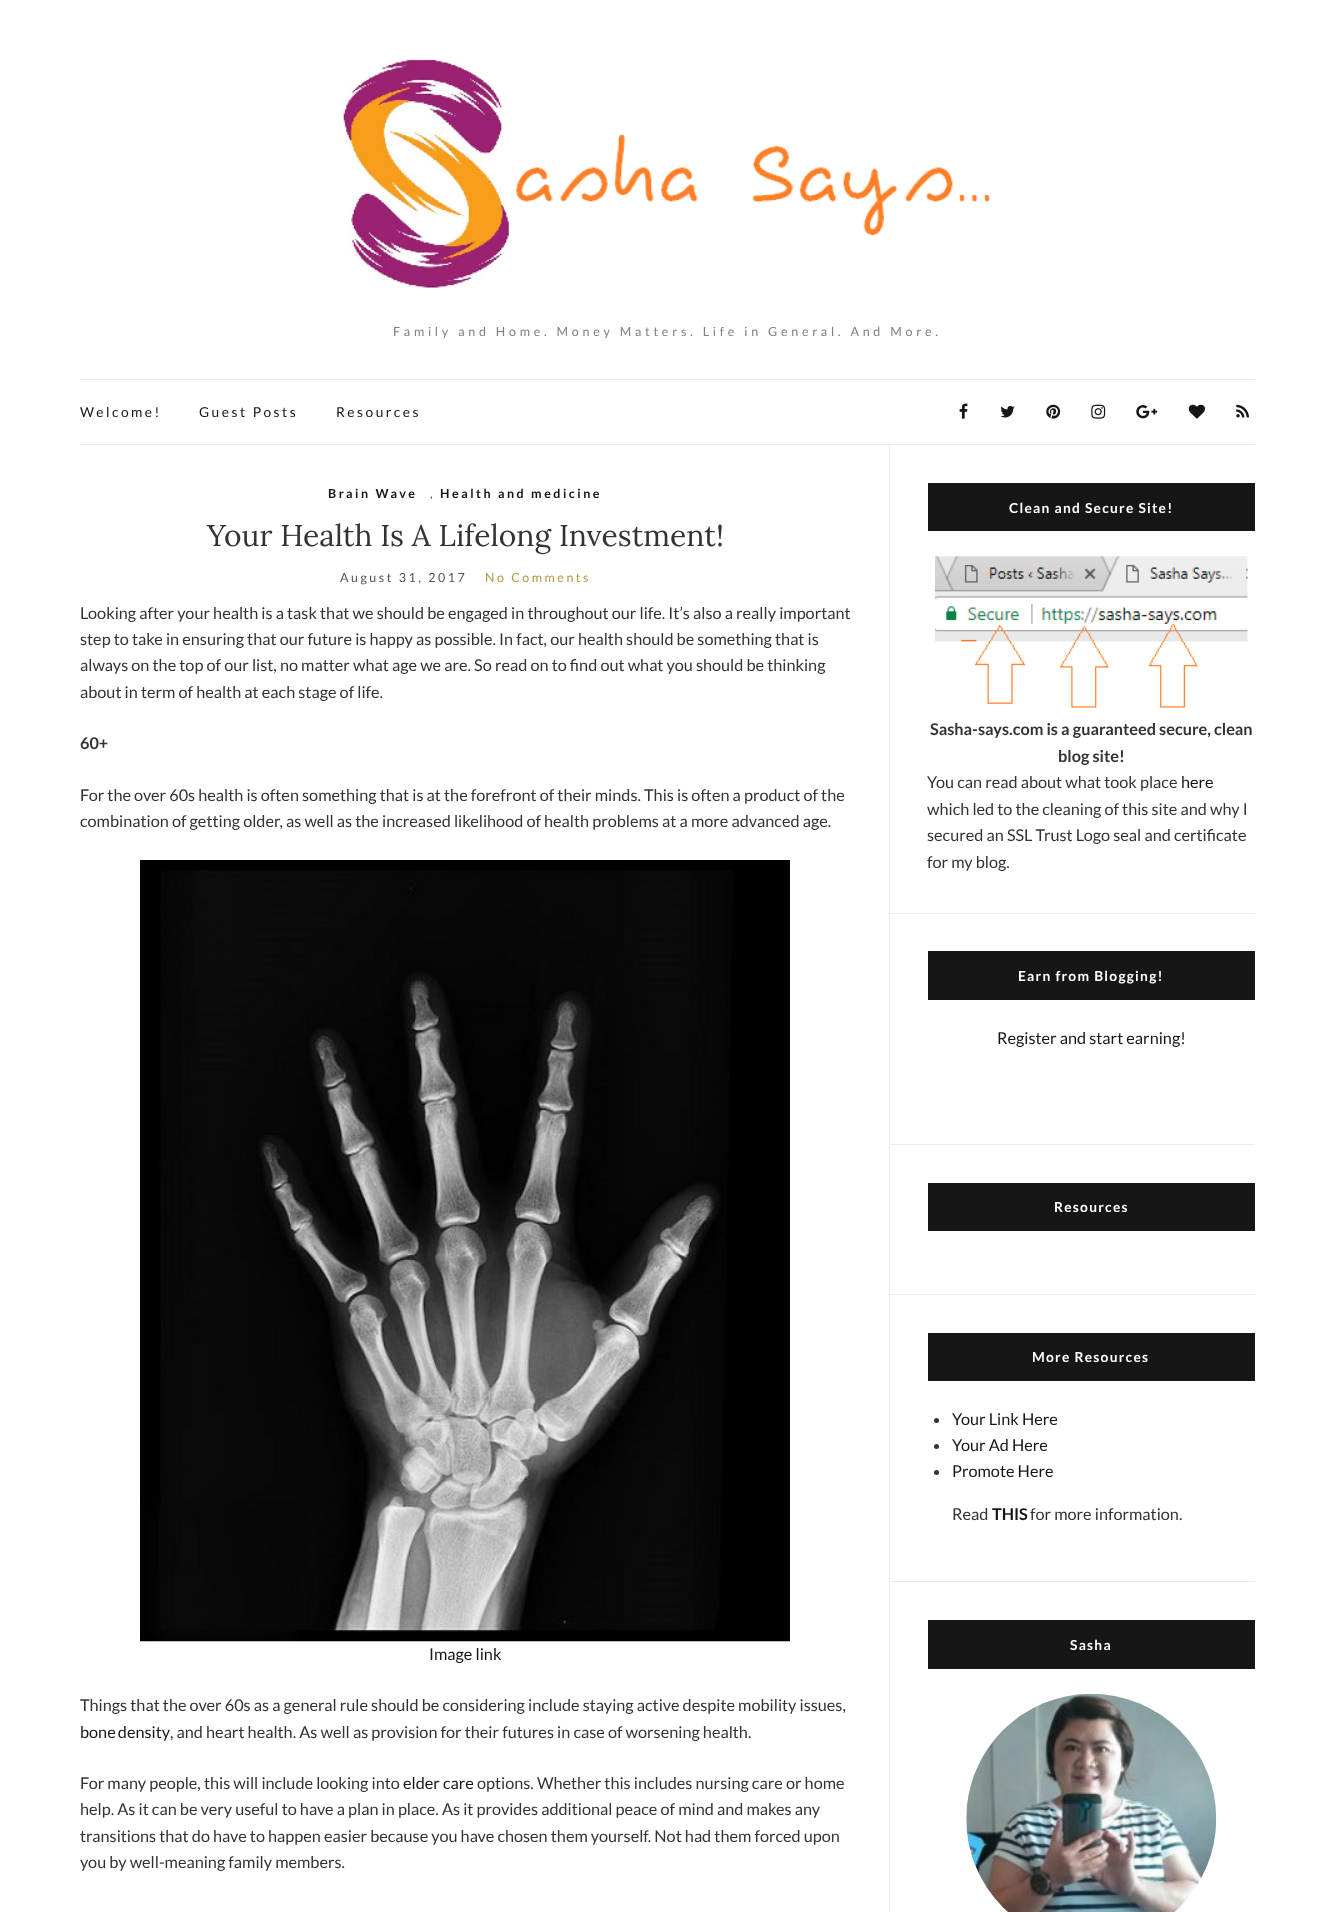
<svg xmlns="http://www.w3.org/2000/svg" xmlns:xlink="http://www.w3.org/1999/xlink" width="1334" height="1912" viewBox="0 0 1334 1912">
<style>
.cls-1{font:12.5px Lato;letter-spacing:3.75px;fill:#7e7e7e}
.cls-2{font:13.75px Lato;letter-spacing:2.5px;fill:#161616}
.cls-3{font:bold 12.5px Lato;letter-spacing:2.5px;fill:#161616}
.cls-4{font:12.5px Lato;letter-spacing:2.5px;fill:#545454}
.cls-5{font:30px Lora;fill:#333333}
.cls-6{font:12.5px Lato;letter-spacing:2.5px;fill:#b49543}
.cls-7{font:16.25px Lato;fill:#333333}
.cls-8{font:bold 16.25px Lato;fill:#333333}
.cls-9{font:16.25px Lato;fill:#161616}
.cls-10{font:bold 13.75px Lato;letter-spacing:1.25px;fill:#ffffff}
.cls-11{font:bold 16.25px Lato;fill:#161616}
</style>
<rect width="100%" height="100%" fill="#ffffff"/>
<image xlink:href="image0.png" x="343" y="58" width="648" height="230"/>
<rect fill="#ebebeb" x="80" y="379" width="1175" height="1"/>
<rect fill="#ebebeb" x="80" y="444" width="1175" height="1"/>
<image xlink:href="image1.png" x="959" y="403" width="9" height="16"/>
<image xlink:href="image2.png" x="1000" y="405" width="15" height="13"/>
<image xlink:href="image3.png" x="1046" y="404" width="15" height="15"/>
<image xlink:href="image4.png" x="1091" y="404" width="15" height="15"/>
<image xlink:href="image5.png" x="1136" y="405" width="22" height="14"/>
<image xlink:href="image6.png" x="1188" y="404" width="17" height="15"/>
<image xlink:href="image7.png" x="1236" y="404" width="13" height="14"/>
<image xlink:href="image8.png" x="140" y="860" width="650" height="782"/>
<rect fill="#ebebeb" x="889" y="445" width="1" height="1467"/>
<rect fill="#ebebeb" x="890" y="913" width="365" height="1"/>
<rect fill="#161616" x="928" y="483" width="327" height="48"/>
<image xlink:href="image9.png" x="935" y="556" width="313" height="152"/>
<rect fill="#ebebeb" x="890" y="1144" width="365" height="1"/>
<rect fill="#161616" x="928" y="951" width="327" height="49"/>
<rect fill="#ebebeb" x="890" y="1294" width="365" height="1"/>
<rect fill="#161616" x="928" y="1183" width="327" height="48"/>
<rect fill="#ebebeb" x="890" y="1581" width="365" height="1"/>
<rect fill="#161616" x="928" y="1333" width="327" height="48"/>
<circle fill="#333333" cx="936.5" cy="1420.5" r="2.5"/>
<circle fill="#333333" cx="936.5" cy="1446.5" r="2.5"/>
<circle fill="#333333" cx="936.5" cy="1472.5" r="2.5"/>
<rect fill="#161616" x="928" y="1620" width="327" height="49"/>
<image xlink:href="image10.png" x="966" y="1693" width="251" height="219"/>
<text class="cls-1" x="393" y="336">Family and Home. Money Matters. Life in General. And More.</text>
<text class="cls-2" x="80" y="417">Welcome!</text>
<text class="cls-2" x="199" y="417">Guest Posts</text>
<text class="cls-2" x="336" y="417">Resources</text>
<text class="cls-3" x="328" y="498">Brain Wave</text>
<text class="cls-4" x="430" y="498">,</text>
<text class="cls-3" x="440" y="498">Health and medicine</text>
<text class="cls-5" x="207" y="546">Your Health Is A Lifelong Investment!</text>
<text class="cls-4" x="340" y="582">August 31, 2017</text>
<text class="cls-6" x="485" y="582">No Comments</text>
<text class="cls-7"><tspan x="80" y="619">Looking after your health is a task that we should be engaged in throughout our life. It’s also a really important</tspan><tspan x="80" y="645">step to take in ensuring that our future is happy as possible. In fact, our health should be something that is</tspan><tspan x="80" y="671">always on the top of our list, no matter what age we are. So read on to find out what you should be thinking</tspan><tspan x="80" y="698">about in term of health at each stage of life.</tspan></text>
<text class="cls-8" x="80" y="749">60+</text>
<text class="cls-7"><tspan x="80" y="801">For the over 60s health is often something that is at the forefront of their minds. This is often a product of the</tspan><tspan x="80" y="827">combination of getting older, as well as the increased likelihood of health problems at a more advanced age.</tspan></text>
<text class="cls-9" x="429" y="1660">Image link</text>
<text class="cls-7" x="80" y="1711">Things that the over 60s as a general rule should be considering include staying active despite mobility issues,</text>
<text class="cls-9" x="80" y="1738" word-spacing="-1">bone density</text>
<text class="cls-7" x="170" y="1738">, and heart health. As well as provision for their futures in case of worsening health.</text>
<text class="cls-7" x="80" y="1789">For many people, this will include looking into</text>
<text class="cls-9" x="403" y="1789">elder care</text>
<text class="cls-7" x="477" y="1789">options. Whether this includes nursing care or home</text>
<text class="cls-7"><tspan x="80" y="1815">help. As it can be very useful to have a plan in place. As it provides additional peace of mind and makes any</tspan><tspan x="80" y="1842">transitions that do have to happen easier because you have chosen them yourself. Not had them forced upon</tspan><tspan x="80" y="1868">you by well-meaning family members.</tspan></text>
<text class="cls-10" x="1009" y="513">Clean and Secure Site!</text>
<text class="cls-8" x="930" y="735">Sasha-says.com is a guaranteed secure, clean</text>
<text class="cls-8" x="1058" y="762">blog site!</text>
<text class="cls-7" x="927" y="788">You can read about what took place</text>
<text class="cls-9" x="1181" y="788">here</text>
<text class="cls-7"><tspan x="927" y="815">which led to the cleaning of this site and why I</tspan><tspan x="927" y="841">secured an SSL Trust Logo seal and certificate</tspan><tspan x="927" y="868">for my blog.</tspan></text>
<text class="cls-10" x="1018" y="981">Earn from Blogging!</text>
<text class="cls-9" x="997" y="1044">Register and start earning!</text>
<text class="cls-10" x="1054" y="1212">Resources</text>
<text class="cls-10" x="1032" y="1362">More Resources</text>
<text class="cls-9"><tspan x="952" y="1425">Your Link Here</tspan><tspan x="952" y="1451">Your Ad Here</tspan><tspan x="952" y="1477">Promote Here</tspan></text>
<text class="cls-7" x="952" y="1520">Read</text>
<text class="cls-11" x="992" y="1520">THIS</text>
<text class="cls-7" x="1030" y="1520">for more information.</text>
<text class="cls-10" x="1070" y="1650">Sasha</text>
</svg>
